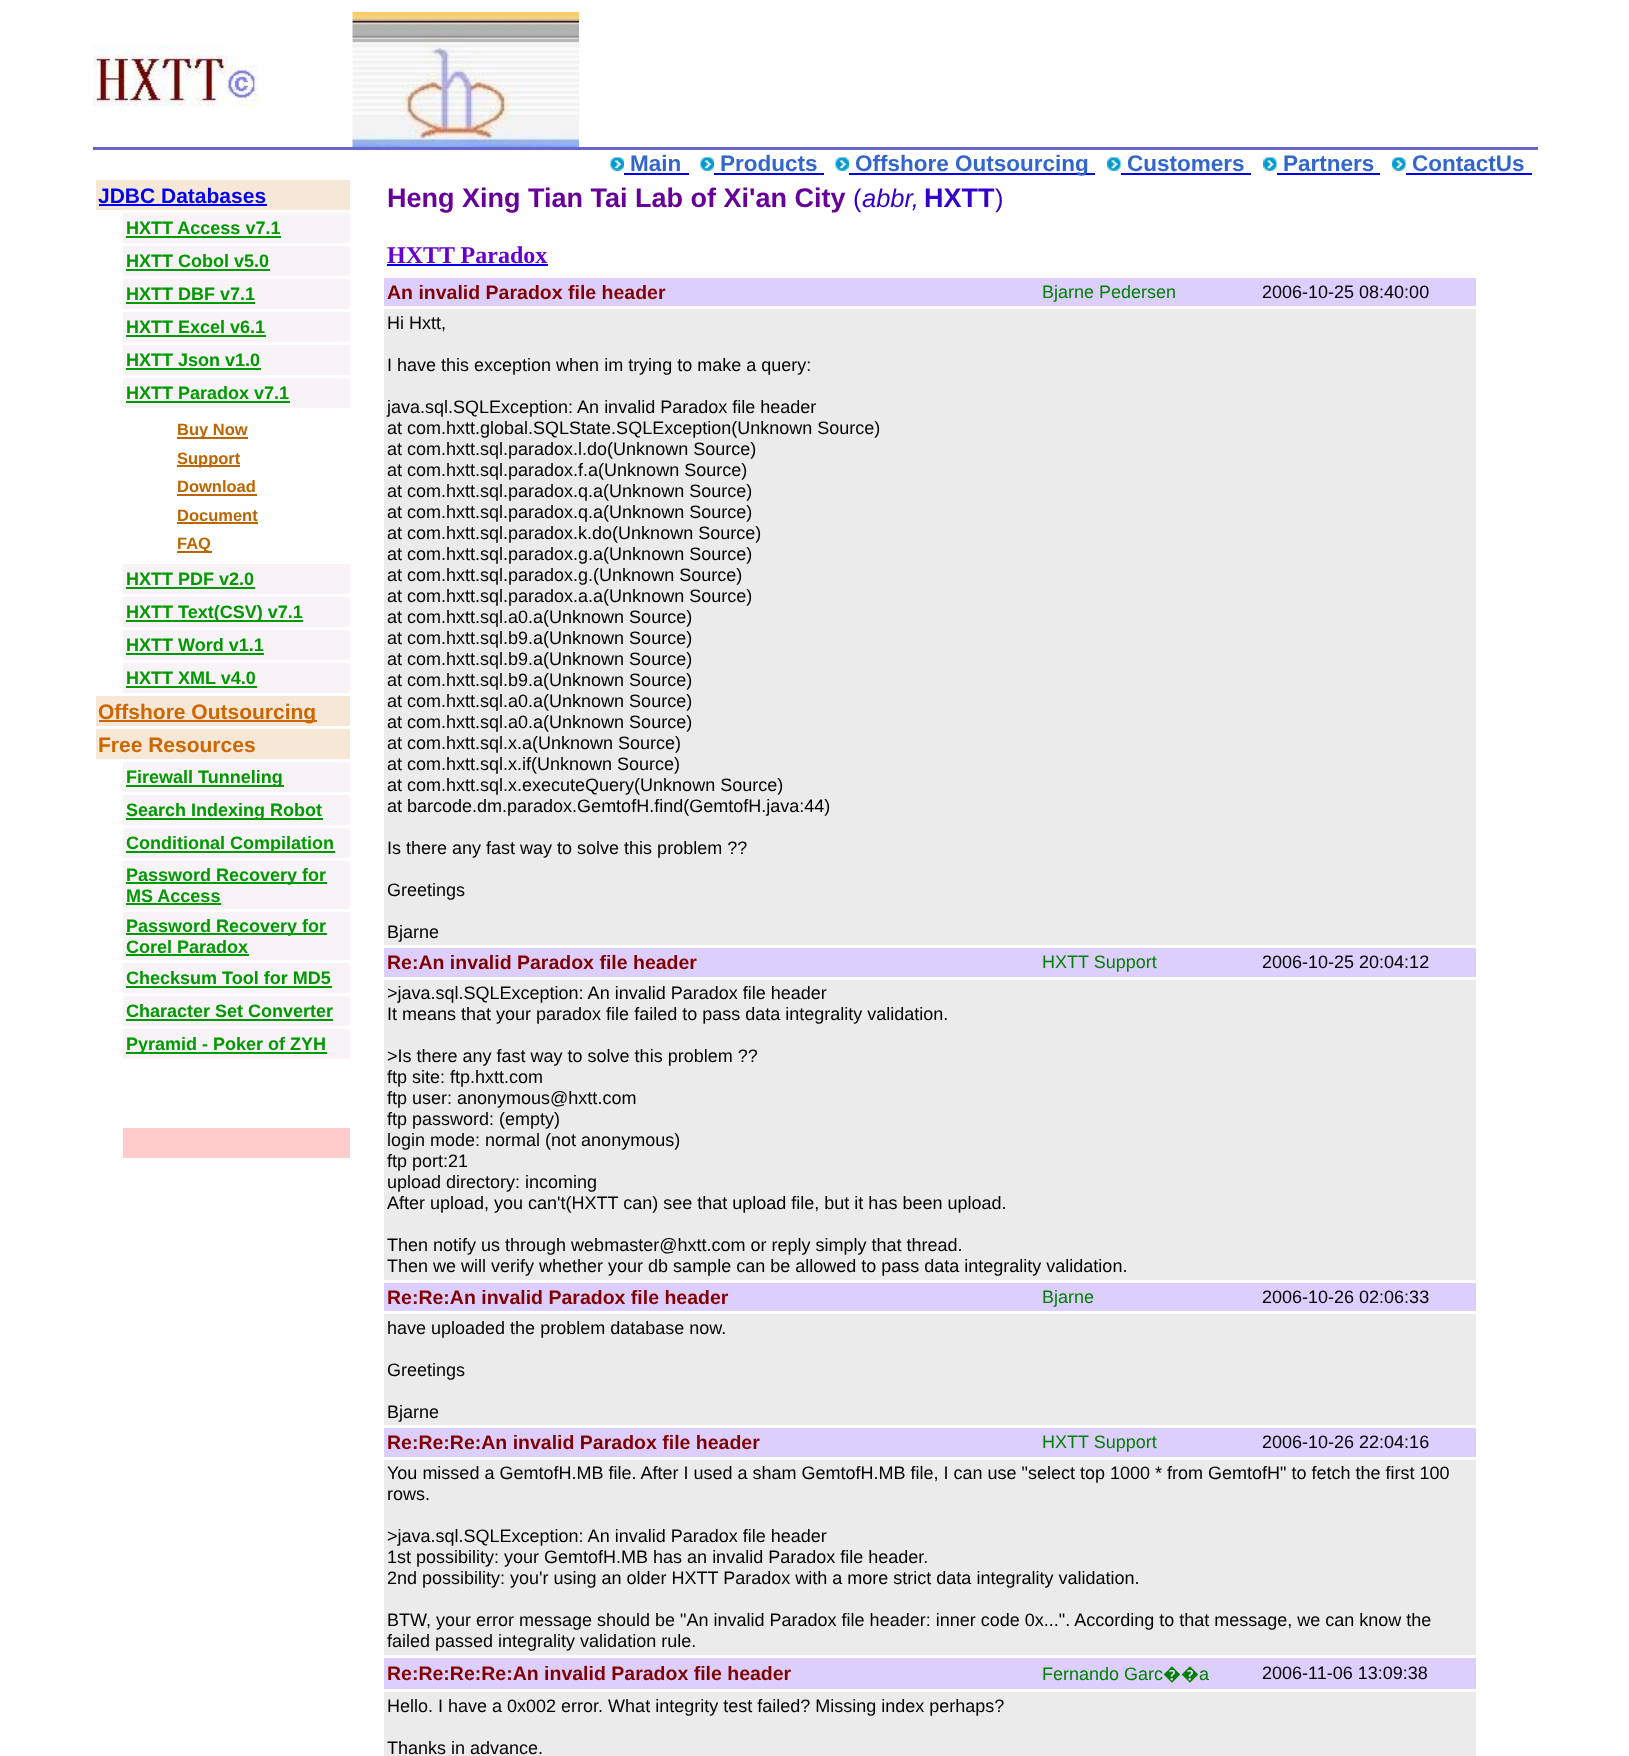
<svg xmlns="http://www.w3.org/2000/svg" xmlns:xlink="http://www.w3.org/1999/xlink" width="1629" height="1756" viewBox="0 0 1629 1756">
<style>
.cls-1{font:bold 22.5px Liberation Sans;fill:#3366cc}
.cls-2{font:bold 21px Liberation Sans;fill:#0000ee}
.cls-3{font:bold 18px Liberation Sans;fill:#009900}
.cls-4{font:bold 16.5px Liberation Sans;fill:#bb6600}
.cls-5{font:bold 21px Liberation Sans;fill:#cc6600}
.cls-6{font:bold 27px Liberation Sans;fill:#660099}
.cls-7{font:25.5px Liberation Sans;fill:#3300cc}
.cls-8{font:italic 25.5px Liberation Sans;fill:#3300cc}
.cls-9{font:bold 27px Liberation Sans;fill:#3300cc}
.cls-10{font:bold 24px Liberation Serif;fill:#6600cc}
.cls-11{font:bold 19.5px Liberation Sans;fill:#800000}
.cls-12{font:18px Liberation Sans;fill:#008000}
.cls-13{font:18px Liberation Sans;fill:#000000}
.cls-14{font:18px Noto Sans;fill:#008000}
</style>
<rect width="100%" height="100%" fill="#ffffff"/>
<image xlink:href="image0.png" x="93" y="45" width="167" height="63"/>
<image xlink:href="image1.png" x="352" y="12" width="227" height="135"/>
<rect fill="#6666cc" x="93" y="147" width="1445" height="3"/>
<image xlink:href="image2.png" x="610" y="157" width="14" height="14"/>
<rect fill="#0000ee" x="624" y="173" width="65" height="2"/>
<image xlink:href="image2.png" x="700" y="157" width="14" height="14"/>
<rect fill="#0000ee" x="714" y="173" width="110" height="2"/>
<image xlink:href="image3.png" x="835" y="157" width="14" height="14"/>
<rect fill="#0000ee" x="849" y="173" width="246" height="2"/>
<image xlink:href="image4.png" x="1107" y="157" width="14" height="14"/>
<rect fill="#0000ee" x="1121" y="173" width="130" height="2"/>
<image xlink:href="image5.png" x="1263" y="157" width="14" height="14"/>
<rect fill="#0000ee" x="1277" y="173" width="103" height="2"/>
<image xlink:href="image6.png" x="1392" y="157" width="14" height="14"/>
<rect fill="#0000ee" x="1406" y="173" width="126" height="2"/>
<rect fill="#f7e7d6" x="96" y="180" width="254" height="30"/>
<rect fill="#0000ee" x="99" y="204" width="168" height="2"/>
<rect fill="#f7f3f7" x="123" y="213" width="227" height="30"/>
<rect fill="#009900" x="126" y="236" width="155" height="2"/>
<rect fill="#f7f3f7" x="123" y="246" width="227" height="30"/>
<rect fill="#009900" x="126" y="269" width="144" height="2"/>
<rect fill="#f7f3f7" x="123" y="279" width="227" height="30"/>
<rect fill="#009900" x="126" y="302" width="129" height="2"/>
<rect fill="#f7f3f7" x="123" y="312" width="227" height="30"/>
<rect fill="#009900" x="126" y="335" width="140" height="2"/>
<rect fill="#f7f3f7" x="123" y="345" width="227" height="30"/>
<rect fill="#009900" x="126" y="368" width="135" height="2"/>
<rect fill="#f7f3f7" x="123" y="378" width="227" height="30"/>
<rect fill="#009900" x="126" y="401" width="164" height="2"/>
<rect fill="#bb6600" x="177" y="437" width="71" height="2"/>
<rect fill="#bb6600" x="177" y="465" width="63" height="2"/>
<rect fill="#bb6600" x="177" y="494" width="80" height="2"/>
<rect fill="#bb6600" x="177" y="522" width="81" height="2"/>
<rect fill="#bb6600" x="177" y="551" width="35" height="2"/>
<rect fill="#f7f3f7" x="123" y="564" width="227" height="30"/>
<rect fill="#009900" x="126" y="587" width="129" height="2"/>
<rect fill="#f7f3f7" x="123" y="597" width="227" height="30"/>
<rect fill="#009900" x="126" y="620" width="177" height="2"/>
<rect fill="#f7f3f7" x="123" y="630" width="227" height="30"/>
<rect fill="#009900" x="126" y="653" width="138" height="2"/>
<rect fill="#f7f3f7" x="123" y="663" width="227" height="30"/>
<rect fill="#009900" x="126" y="686" width="131" height="2"/>
<rect fill="#f7e7d6" x="96" y="696" width="254" height="30"/>
<rect fill="#cc6600" x="99" y="720" width="218" height="2"/>
<rect fill="#f7e7d6" x="96" y="729" width="254" height="30"/>
<rect fill="#f7f3f7" x="123" y="762" width="227" height="30"/>
<rect fill="#009900" x="126" y="785" width="158" height="2"/>
<rect fill="#f7f3f7" x="123" y="795" width="227" height="30"/>
<rect fill="#009900" x="126" y="818" width="197" height="2"/>
<rect fill="#f7f3f7" x="123" y="828" width="227" height="30"/>
<rect fill="#009900" x="126" y="851" width="209" height="2"/>
<rect fill="#f7f3f7" x="123" y="861" width="227" height="48"/>
<rect fill="#009900" x="126" y="882" width="201" height="2"/>
<rect fill="#009900" x="126" y="903" width="95" height="2"/>
<rect fill="#f7f3f7" x="123" y="912" width="227" height="48"/>
<rect fill="#009900" x="126" y="933" width="201" height="2"/>
<rect fill="#009900" x="126" y="954" width="123" height="2"/>
<rect fill="#f7f3f7" x="123" y="963" width="227" height="30"/>
<rect fill="#009900" x="126" y="986" width="206" height="2"/>
<rect fill="#f7f3f7" x="123" y="996" width="227" height="30"/>
<rect fill="#009900" x="126" y="1019" width="207" height="2"/>
<rect fill="#f7f3f7" x="123" y="1029" width="227" height="30"/>
<rect fill="#009900" x="126" y="1052" width="201" height="2"/>
<rect fill="#ffcccc" x="123" y="1128" width="227" height="30"/>
<rect fill="#0000ee" x="387" y="264" width="161" height="2"/>
<rect fill="#dccffe" x="384" y="278" width="1092" height="28"/>
<rect fill="#ebebeb" x="384" y="309" width="1092" height="636"/>
<rect fill="#dccffe" x="384" y="948" width="1092" height="29"/>
<rect fill="#ebebeb" x="384" y="980" width="1092" height="300"/>
<rect fill="#dccffe" x="384" y="1283" width="1092" height="28"/>
<rect fill="#ebebeb" x="384" y="1314" width="1092" height="111"/>
<rect fill="#dccffe" x="384" y="1428" width="1092" height="29"/>
<rect fill="#ebebeb" x="384" y="1460" width="1092" height="195"/>
<rect fill="#dccffe" x="384" y="1658" width="1092" height="31"/>
<rect fill="#ebebeb" x="384" y="1692" width="1092" height="64"/>
<text class="cls-1" x="630" y="171">Main</text>
<text class="cls-1" x="720" y="171">Products</text>
<text class="cls-1" x="855" y="171">Offshore Outsourcing</text>
<text class="cls-1" x="1127" y="171">Customers</text>
<text class="cls-1" x="1283" y="171">Partners</text>
<text class="cls-1" x="1412" y="171">ContactUs</text>
<text class="cls-2" x="98" y="203">JDBC Databases</text>
<text class="cls-3"><tspan x="126" y="234">HXTT Access v7.1</tspan><tspan x="126" y="267">HXTT Cobol v5.0</tspan><tspan x="126" y="300">HXTT DBF v7.1</tspan><tspan x="126" y="333">HXTT Excel v6.1</tspan><tspan x="126" y="366">HXTT Json v1.0</tspan><tspan x="126" y="399">HXTT Paradox v7.1</tspan></text>
<text class="cls-4"><tspan x="177" y="435">Buy Now</tspan><tspan x="177" y="464">Support</tspan><tspan x="177" y="492">Download</tspan><tspan x="177" y="521">Document</tspan><tspan x="177" y="549">FAQ</tspan></text>
<text class="cls-3"><tspan x="126" y="585">HXTT PDF v2.0</tspan><tspan x="126" y="618">HXTT Text(CSV) v7.1</tspan><tspan x="126" y="651">HXTT Word v1.1</tspan><tspan x="126" y="684">HXTT XML v4.0</tspan></text>
<text class="cls-5"><tspan x="98" y="719">Offshore Outsourcing</tspan><tspan x="98" y="752">Free Resources</tspan></text>
<text class="cls-3"><tspan x="126" y="783">Firewall Tunneling</tspan><tspan x="126" y="816">Search Indexing Robot</tspan><tspan x="126" y="849">Conditional Compilation</tspan><tspan x="126" y="881">Password Recovery for</tspan><tspan x="126" y="902">MS Access</tspan><tspan x="126" y="932">Password Recovery for</tspan><tspan x="126" y="953">Corel Paradox</tspan><tspan x="126" y="984">Checksum Tool for MD5</tspan><tspan x="126" y="1017">Character Set Converter</tspan><tspan x="126" y="1050">Pyramid - Poker of ZYH</tspan></text>
<text class="cls-6" x="387" y="207">Heng Xing Tian Tai Lab of Xi'an City</text>
<text class="cls-7" x="853" y="207">(</text>
<text class="cls-8" x="862" y="207">abbr,</text>
<text class="cls-9" x="924" y="207">HXTT</text>
<text class="cls-7" x="995" y="207">)</text>
<text class="cls-10" x="387" y="263">HXTT Paradox</text>
<text class="cls-11" x="387" y="299">An invalid Paradox file header</text>
<text class="cls-12" x="1042" y="298">Bjarne Pedersen</text>
<text class="cls-13" x="1262" y="298">2006-10-25 08:40:00</text>
<text class="cls-13" x="387" y="329">Hi Hxtt,</text>
<text class="cls-13" x="387" y="371">I have this exception when im trying to make a query:</text>
<text class="cls-13"><tspan x="387" y="413">java.sql.SQLException: An invalid Paradox file header</tspan><tspan x="387" y="434">at com.hxtt.global.SQLState.SQLException(Unknown Source)</tspan><tspan x="387" y="455">at com.hxtt.sql.paradox.l.do(Unknown Source)</tspan><tspan x="387" y="476">at com.hxtt.sql.paradox.f.a(Unknown Source)</tspan><tspan x="387" y="497">at com.hxtt.sql.paradox.q.a(Unknown Source)</tspan><tspan x="387" y="518">at com.hxtt.sql.paradox.q.a(Unknown Source)</tspan><tspan x="387" y="539">at com.hxtt.sql.paradox.k.do(Unknown Source)</tspan><tspan x="387" y="560">at com.hxtt.sql.paradox.g.a(Unknown Source)</tspan><tspan x="387" y="581">at com.hxtt.sql.paradox.g.(Unknown Source)</tspan><tspan x="387" y="602">at com.hxtt.sql.paradox.a.a(Unknown Source)</tspan><tspan x="387" y="623">at com.hxtt.sql.a0.a(Unknown Source)</tspan><tspan x="387" y="644">at com.hxtt.sql.b9.a(Unknown Source)</tspan><tspan x="387" y="665">at com.hxtt.sql.b9.a(Unknown Source)</tspan><tspan x="387" y="686">at com.hxtt.sql.b9.a(Unknown Source)</tspan><tspan x="387" y="707">at com.hxtt.sql.a0.a(Unknown Source)</tspan><tspan x="387" y="728">at com.hxtt.sql.a0.a(Unknown Source)</tspan><tspan x="387" y="749">at com.hxtt.sql.x.a(Unknown Source)</tspan><tspan x="387" y="770">at com.hxtt.sql.x.if(Unknown Source)</tspan><tspan x="387" y="791">at com.hxtt.sql.x.executeQuery(Unknown Source)</tspan><tspan x="387" y="812">at barcode.dm.paradox.GemtofH.find(GemtofH.java:44)</tspan></text>
<text class="cls-13" x="387" y="854">Is there any fast way to solve this problem ??</text>
<text class="cls-13" x="387" y="896">Greetings</text>
<text class="cls-13" x="387" y="938">Bjarne</text>
<text class="cls-11" x="387" y="969">Re:An invalid Paradox file header</text>
<text class="cls-12" x="1042" y="968">HXTT Support</text>
<text class="cls-13" x="1262" y="968">2006-10-25 20:04:12</text>
<text class="cls-13"><tspan x="387" y="999">&gt;java.sql.SQLException: An invalid Paradox file header</tspan><tspan x="387" y="1020">It means that your paradox file failed to pass data integrality validation.</tspan></text>
<text class="cls-13"><tspan x="387" y="1062">&gt;Is there any fast way to solve this problem ??</tspan><tspan x="387" y="1083">ftp site: ftp.hxtt.com</tspan><tspan x="387" y="1104">ftp user: anonymous@hxtt.com</tspan><tspan x="387" y="1125">ftp password: (empty)</tspan><tspan x="387" y="1146">login mode: normal (not anonymous)</tspan><tspan x="387" y="1167">ftp port:21</tspan><tspan x="387" y="1188">upload directory: incoming</tspan><tspan x="387" y="1209">After upload, you can't(HXTT can) see that upload file, but it has been upload.</tspan></text>
<text class="cls-13"><tspan x="387" y="1251">Then notify us through webmaster@hxtt.com or reply simply that thread.</tspan><tspan x="387" y="1272">Then we will verify whether your db sample can be allowed to pass data integrality validation.</tspan></text>
<text class="cls-11" x="387" y="1304">Re:Re:An invalid Paradox file header</text>
<text class="cls-12" x="1042" y="1303">Bjarne</text>
<text class="cls-13" x="1262" y="1303">2006-10-26 02:06:33</text>
<text class="cls-13" x="387" y="1334">have uploaded the problem database now.</text>
<text class="cls-13" x="387" y="1376">Greetings</text>
<text class="cls-13" x="387" y="1418">Bjarne</text>
<text class="cls-11" x="387" y="1449">Re:Re:Re:An invalid Paradox file header</text>
<text class="cls-12" x="1042" y="1448">HXTT Support</text>
<text class="cls-13" x="1262" y="1448">2006-10-26 22:04:16</text>
<text class="cls-13"><tspan x="387" y="1479">You missed a GemtofH.MB file. After I used a sham GemtofH.MB file, I can use "select top 1000 * from GemtofH" to fetch the first 100</tspan><tspan x="387" y="1500">rows.</tspan></text>
<text class="cls-13"><tspan x="387" y="1542">&gt;java.sql.SQLException: An invalid Paradox file header</tspan><tspan x="387" y="1563">1st possibility: your GemtofH.MB has an invalid Paradox file header.</tspan><tspan x="387" y="1584">2nd possibility: you'r using an older HXTT Paradox with a more strict data integrality validation.</tspan></text>
<text class="cls-13"><tspan x="387" y="1626">BTW, your error message should be "An invalid Paradox file header: inner code 0x...". According to that message, we can know the</tspan><tspan x="387" y="1647">failed passed integrality validation rule.</tspan></text>
<text class="cls-11" x="387" y="1680">Re:Re:Re:Re:An invalid Paradox file header</text>
<text class="cls-12" x="1042" y="1680">Fernando Garc</text>
<text class="cls-14" x="1163" y="1680">��</text>
<text class="cls-12" x="1199" y="1680">a</text>
<text class="cls-13" x="1262" y="1679">2006-11-06 13:09:38</text>
<text class="cls-13" x="387" y="1712">Hello. I have a 0x002 error. What integrity test failed? Missing index perhaps?</text>
<text class="cls-13" x="387" y="1754">Thanks in advance.</text>
</svg>
